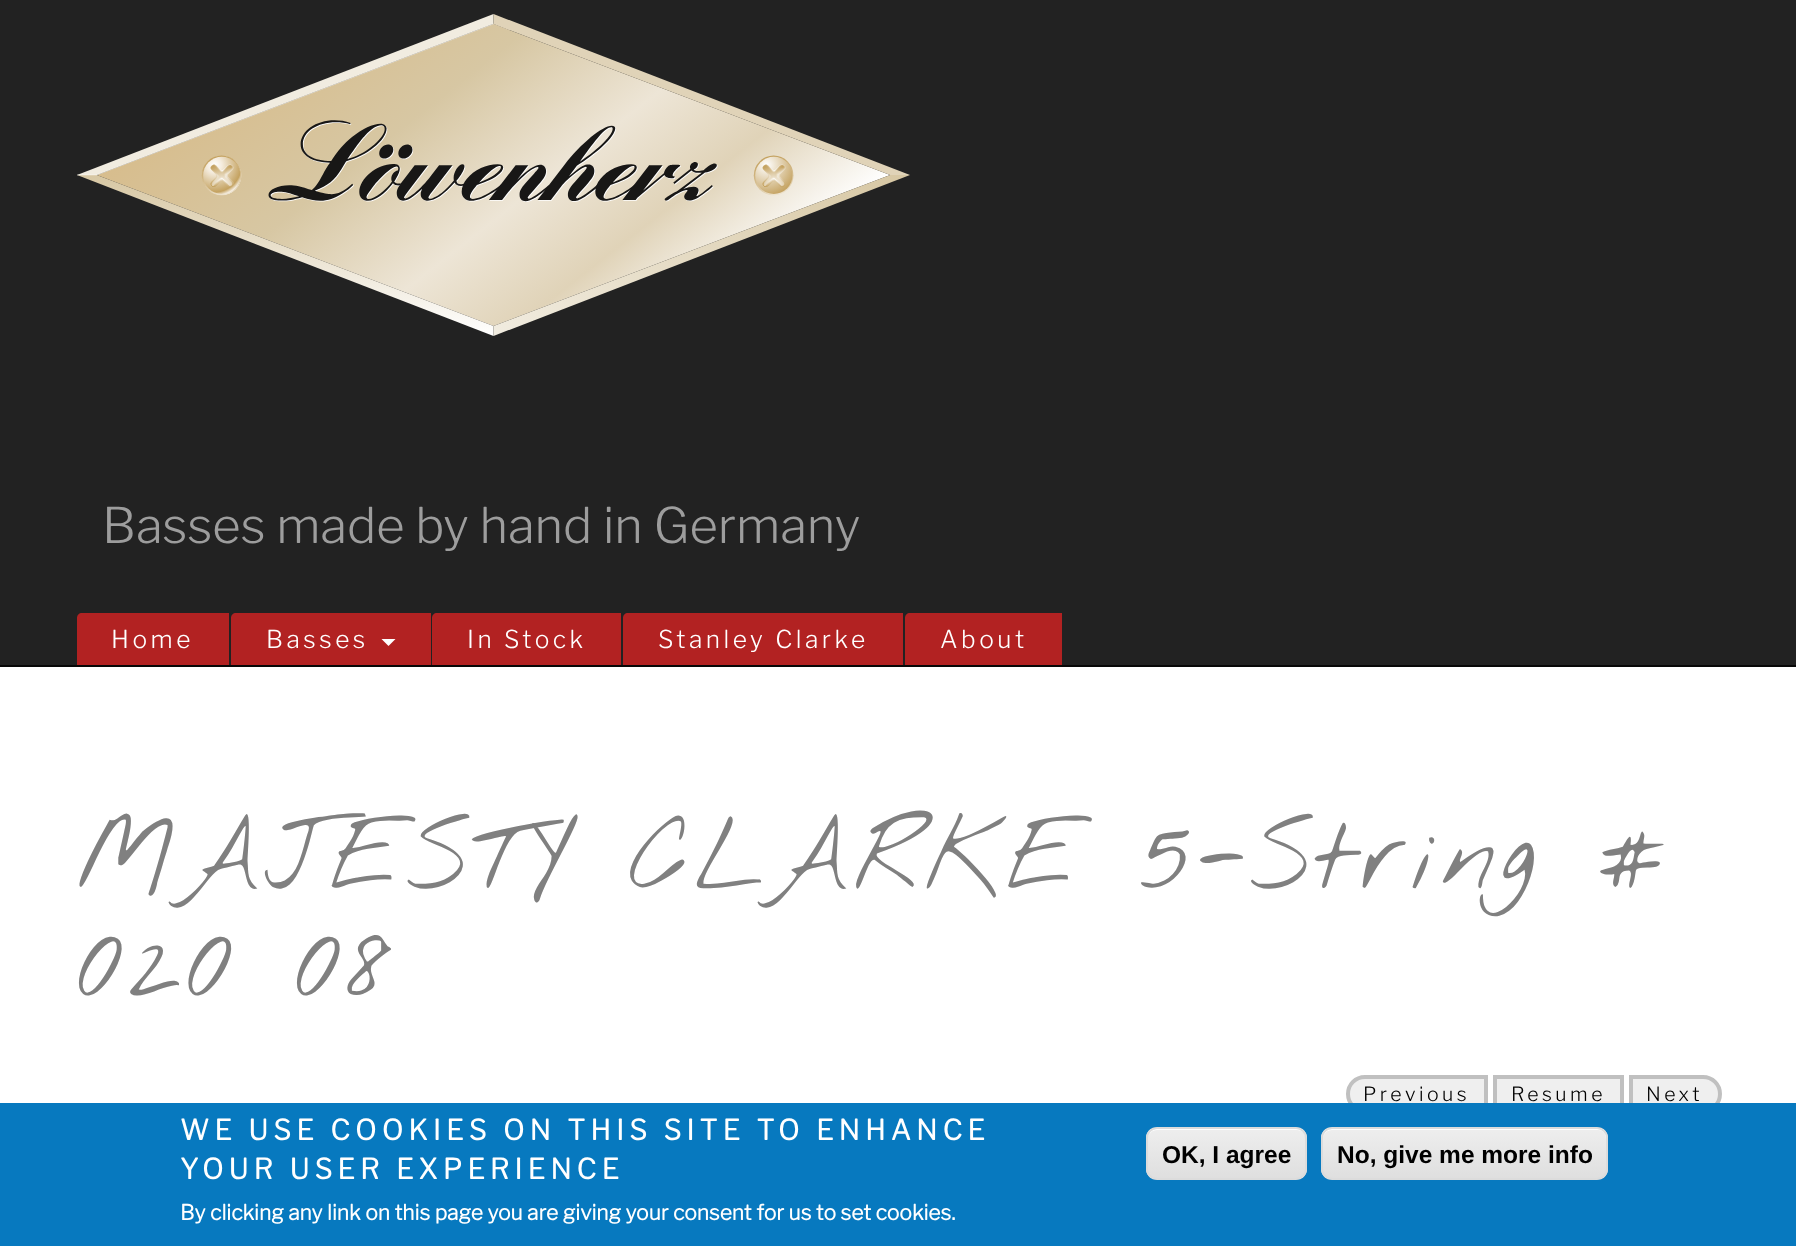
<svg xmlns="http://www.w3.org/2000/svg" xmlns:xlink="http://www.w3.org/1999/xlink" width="1796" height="1246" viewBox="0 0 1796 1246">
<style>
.cls-1{font:100 49px Libre Franklin;fill:#9d9d9d}
.cls-2{font:100 24.5px Libre Franklin;letter-spacing:3.5px;fill:#ffffff}
.cls-3{font:100 98px Nothing You Could Do;letter-spacing:5.25px;fill:#808080}
.cls-4{font:100 19.5px Libre Franklin;letter-spacing:3.5px;fill:#000000}
.cls-5{font:bold 28px Libre Franklin;letter-spacing:5.25px;fill:#ffffff}
.cls-6{font:bold 21px Libre Franklin;fill:#ffffff}
.cls-7{font:bold 24.5px Liberation Sans;fill:#000000}
</style>
<defs>
<clipPath id="clip1"><rect x="1146" y="1127" width="161" height="53" rx="11"/></clipPath>
<linearGradient id="g1" gradientUnits="userSpaceOnUse" x1="1148" y1="1129" x2="1148" y2="1178"><stop offset="0.05" stop-color="#ededed"/><stop offset="1" stop-color="#dfdfdf"/></linearGradient>
<clipPath id="clip2"><rect x="1321" y="1127" width="287" height="53" rx="11"/></clipPath>
<linearGradient id="g2" gradientUnits="userSpaceOnUse" x1="1323" y1="1129" x2="1323" y2="1178"><stop offset="0.05" stop-color="#ededed"/><stop offset="1" stop-color="#dfdfdf"/></linearGradient>
</defs>
<rect width="100%" height="100%" fill="#ffffff"/>
<rect fill="#222222" x="0" y="0" width="1796" height="665"/>
<rect fill="#080808" x="0" y="665" width="1796" height="2"/>
<image xlink:href="image0.png" x="77" y="14" width="833" height="322"/>
<path fill="#b22222" d="M82 613H229V665H77V618C77 615 79 613 82 613Z"/>
<path fill="#b22222" d="M236 613H431V665H231V618C231 615 233 613 236 613Z"/>
<path fill="#ffffff" d="M381.5 639H395.5L388.5 646Z"/>
<path fill="#b22222" d="M437 613H621V665H432V618C432 615 434 613 437 613Z"/>
<path fill="#b22222" d="M628 613H903V665H623V618C623 615 625 613 628 613Z"/>
<path fill="#b22222" d="M910 613H1062V665H905V618C905 615 907 613 910 613Z"/>
<path fill="#efefef" stroke="#c0c0c0" stroke-width="4" d="M1365 1077H1486V1111H1365C1355.5 1111 1348 1103.5 1348 1094C1348 1084.5 1355.5 1077 1365 1077Z"/>
<rect fill="#efefef" x="1497" y="1079" width="123" height="24"/>
<rect fill="none" stroke="#c0c0c0" stroke-width="4" x="1495" y="1077" width="127" height="34"/>
<path fill="#efefef" stroke="#c0c0c0" stroke-width="4" d="M1631 1077H1703C1712.5 1077 1720 1084.5 1720 1094C1720 1103.5 1712.5 1111 1703 1111H1631Z"/>
<rect fill="#0779bf" x="0" y="1103" width="1796" height="143"/>
<g clip-path="url(#clip1)">
<rect fill="url(#g1)" x="1146" y="1129" width="161" height="49"/>
</g>
<path fill="#ffffff" d="M1157 1130H1297C1302 1130 1306 1134 1306 1139C1306 1123 1282 1129 1274 1129H1180C1172 1129 1148 1123 1148 1139C1148 1134 1152 1130 1157 1130Z"/>
<rect fill="none" stroke="#dcdcdc" stroke-width="2" x="1147" y="1128" width="159" height="51" rx="10"/>
<g clip-path="url(#clip2)">
<rect fill="url(#g2)" x="1321" y="1129" width="287" height="49"/>
</g>
<path fill="#ffffff" d="M1332 1130H1598C1608 1130 1606 1143 1606 1150V1174C1607 1172 1607 1171 1607 1169V1138C1607 1133 1603 1129 1598 1129H1332C1327 1129 1323 1133 1323 1138V1139C1323 1134 1327 1130 1332 1130Z"/>
<rect fill="none" stroke="#dcdcdc" stroke-width="2" x="1322" y="1128" width="285" height="51" rx="10"/>
<text class="cls-1" x="102" y="543">Basses made by hand in Germany</text>
<text class="cls-2" x="111" y="648">Home</text>
<text class="cls-2" x="266" y="648">Basses</text>
<text class="cls-2" x="467" y="648">In Stock</text>
<text class="cls-2" x="658" y="648">Stanley Clarke</text>
<text class="cls-2" x="940" y="648">About</text>
<text class="cls-3"><tspan x="76" y="888">MAJESTY CLARKE 5-String #</tspan><tspan x="76" y="995">020 08</tspan></text>
<text class="cls-4" x="1363" y="1101">Previous</text>
<text class="cls-4" x="1511" y="1101">Resume</text>
<text class="cls-4" x="1646" y="1101">Next</text>
<text class="cls-5"><tspan x="180" y="1140">WE USE COOKIES ON THIS SITE TO ENHANCE</tspan><tspan x="180" y="1179">YOUR USER EXPERIENCE</tspan></text>
<text class="cls-6" x="180" y="1220">By clicking any link on this page you are giving your consent for us to set cookies.</text>
<text class="cls-7" x="1162" y="1163">OK, I agree</text>
<text class="cls-7" x="1337" y="1163">No, give me more info</text>
</svg>
